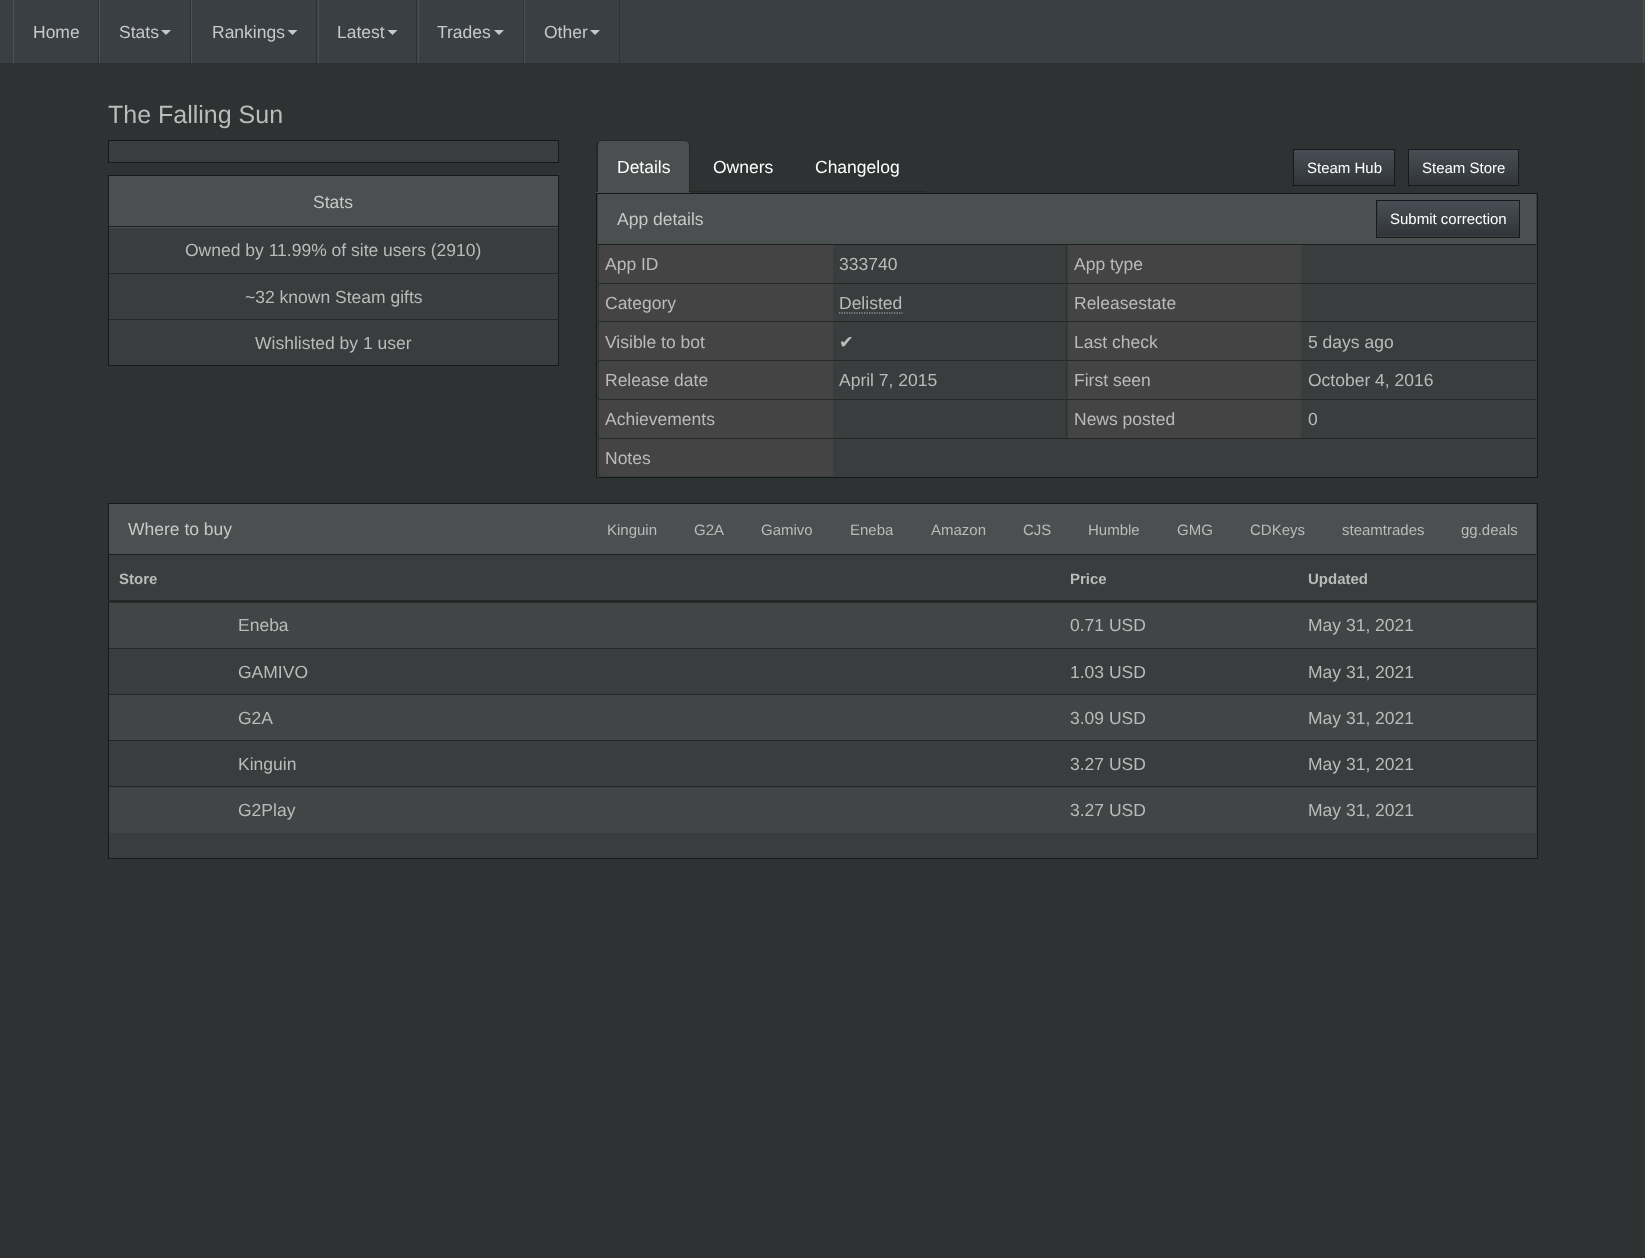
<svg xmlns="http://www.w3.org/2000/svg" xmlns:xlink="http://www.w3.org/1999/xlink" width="1645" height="1258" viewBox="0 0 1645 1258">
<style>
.cls-1{font:17.5px Liberation Sans;fill:#c8c8c8}
.cls-2{font:25px Liberation Sans;fill:#bbbbbb}
.cls-3{font:17.5px Liberation Sans;fill:#ffffff}
.cls-4{font:15px Liberation Sans;fill:#ffffff}
.cls-5{font:17.5px Liberation Sans;fill:#bbbbbb}
.cls-6{font:17.5px DejaVu Sans;fill:#bbbbbb}
.cls-7{font:15px Liberation Sans;fill:#bbbbbb}
.cls-8{font:bold 15px Liberation Sans;fill:#bbbbbb}
</style>
<defs>
<linearGradient id="g1" gradientUnits="userSpaceOnUse" x1="1344" y1="150" x2="1344" y2="185"><stop offset="0" stop-color="#484e55"/><stop offset="0.6" stop-color="#3a3f44"/><stop offset="1" stop-color="#313539"/></linearGradient>
<linearGradient id="g2" gradientUnits="userSpaceOnUse" x1="1463" y1="150" x2="1463" y2="185"><stop offset="0" stop-color="#484e55"/><stop offset="0.6" stop-color="#3a3f44"/><stop offset="1" stop-color="#313539"/></linearGradient>
<linearGradient id="g3" gradientUnits="userSpaceOnUse" x1="1448" y1="201" x2="1448" y2="236"><stop offset="0" stop-color="#484e55"/><stop offset="0.6" stop-color="#3a3f44"/><stop offset="1" stop-color="#313539"/></linearGradient>
</defs>
<rect width="100%" height="100%" fill="#2f3232"/>
<rect fill="#3a3f44" x="0" y="0" width="1645" height="63"/>
<rect fill="#2e3236" x="98" y="0" width="1" height="63"/>
<rect fill="#4e5257" x="13" y="0" width="1" height="63"/>
<rect fill="#2e3236" x="190" y="0" width="1" height="63"/>
<rect fill="#4e5257" x="99" y="0" width="1" height="63"/>
<path fill="#c8c8c8" d="M161 30H171L166 35Z"/>
<rect fill="#2e3236" x="316" y="0" width="1" height="63"/>
<rect fill="#4e5257" x="191" y="0" width="1" height="63"/>
<path fill="#c8c8c8" d="M287.5 30H297.5L292.5 35Z"/>
<rect fill="#2e3236" x="416" y="0" width="1" height="63"/>
<rect fill="#4e5257" x="318" y="0" width="1" height="63"/>
<path fill="#c8c8c8" d="M387.5 30H397.5L392.5 35Z"/>
<rect fill="#2e3236" x="523" y="0" width="1" height="63"/>
<rect fill="#4e5257" x="418" y="0" width="1" height="63"/>
<path fill="#c8c8c8" d="M494 30H504L499 35Z"/>
<rect fill="#2e3236" x="619" y="0" width="1" height="63"/>
<rect fill="#4e5257" x="524" y="0" width="1" height="63"/>
<path fill="#c8c8c8" d="M590 30H600L595 35Z"/>
<rect fill="#4e5257" x="1643" y="0" width="1" height="63"/>
<rect fill="#262828" x="690" y="191" width="236" height="1"/>
<path fill="#4b4f4f" d="M601 140H685C688 140 690 142 690 145V193H596V145C596 142 598 140 601 140Z"/>
<path fill="#262828" d="M601 140C600 140 598 140 598 141L599 142C599 142 600 141 601 141H685L688 142L689 141C688 140 686 140 685 140Z"/>
<path fill="#262828" d="M690 192V145C690 144 690 142 689 141L688 142C688 143 689 144 689 145V191H688Z"/>
<path fill="#262828" d="M596 143L598 141L599 142L598 145V191L597 192H596Z"/>
<rect fill="url(#g1)" x="1294" y="150" width="100" height="35"/>
<rect fill="none" stroke="#17191b" x="1293.5" y="149.5" width="101" height="36"/>
<rect fill="url(#g2)" x="1409" y="150" width="109" height="35"/>
<rect fill="none" stroke="#17191b" x="1408.5" y="149.5" width="110" height="36"/>
<rect fill="#393d3d" stroke="#171818" x="108.5" y="140.5" width="450" height="22"/>
<rect fill="#393d3d" x="109" y="228" width="449" height="137"/>
<rect fill="none" stroke="#171818" x="108.5" y="175.5" width="450" height="190"/>
<rect fill="#4b4f4f" x="109" y="176" width="449" height="52"/>
<rect fill="#1e2020" x="109" y="226" width="449" height="1"/>
<rect fill="#262828" x="109" y="273" width="450" height="1"/>
<rect fill="#262828" x="109" y="319" width="450" height="1"/>
<rect fill="#393d3d" stroke="#171818" x="596.5" y="193.5" width="941" height="284"/>
<rect fill="#4b4f4f" x="598" y="194" width="938" height="50"/>
<rect fill="#1e2020" x="598" y="244" width="938" height="1"/>
<rect fill="#3a3f44" x="1377" y="201" width="142" height="36"/>
<rect fill="url(#g3)" x="1378" y="201" width="141" height="35"/>
<rect fill="none" stroke="#17191b" x="1376.5" y="200.5" width="143" height="37"/>
<rect fill="#444444" x="599" y="245" width="234" height="38"/>
<rect fill="#444444" x="1068" y="245" width="233" height="38"/>
<rect fill="#262828" x="1066" y="283" width="470" height="1"/>
<rect fill="#444444" x="599" y="284" width="234" height="76"/>
<rect fill="#444444" x="1068" y="284" width="233" height="76"/>
<rect fill="#262828" x="1066" y="321" width="470" height="1"/>
<rect fill="#262828" x="1066" y="360" width="470" height="1"/>
<rect fill="#262828" x="1066" y="399" width="470" height="1"/>
<rect fill="#313131" x="1066" y="399" width="1" height="40"/>
<rect fill="#262828" x="598" y="399" width="470" height="1"/>
<rect fill="#313131" x="1066" y="360" width="1" height="40"/>
<rect fill="#262828" x="598" y="360" width="470" height="1"/>
<rect fill="#313131" x="1066" y="321" width="1" height="40"/>
<rect fill="#262828" x="598" y="321" width="470" height="1"/>
<rect fill="#313131" x="1066" y="283" width="1" height="40"/>
<rect fill="#262828" x="598" y="283" width="470" height="1"/>
<rect fill="#313131" x="1066" y="245" width="1" height="39"/>
<rect fill="#313131" x="598" y="399" width="1" height="40"/>
<rect fill="#313131" x="598" y="360" width="1" height="40"/>
<rect fill="#313131" x="598" y="321" width="1" height="40"/>
<rect fill="#313131" x="598" y="245" width="1" height="78"/>
<path fill="none" stroke="#bbbbbb" stroke-width="1.2" stroke-dasharray="1.25 1.25" d="M839 313H902.5"/>
<rect fill="#444444" x="599" y="361" width="234" height="38"/>
<rect fill="#444444" x="1068" y="361" width="233" height="38"/>
<rect fill="#444444" x="599" y="400" width="234" height="38"/>
<rect fill="#444444" x="1068" y="400" width="233" height="38"/>
<path fill="#393d3d" d="M598 438H1536V472C1536 474 1534 476 1532 476H602C600 476 598 474 598 472Z"/>
<rect fill="#262828" x="598" y="438" width="938" height="1"/>
<path fill="#444444" d="M599 439H833V476H603C601 476 599 474 599 472Z"/>
<rect fill="#313131" x="598" y="438" width="1" height="40"/>
<rect fill="#393d3d" stroke="#171818" x="108.5" y="503.5" width="1429" height="355"/>
<rect fill="#4b4f4f" x="109" y="504" width="1427" height="50"/>
<rect fill="#1e2020" x="109" y="554" width="1427" height="1"/>
<rect fill="#262828" x="108" y="600" width="1430" height="3"/>
<rect fill="#414545" x="109" y="603" width="1427" height="45"/>
<rect fill="#262828" x="109" y="648" width="1429" height="1"/>
<rect fill="#414545" x="109" y="695" width="1427" height="45"/>
<rect fill="#262828" x="109" y="694" width="1429" height="1"/>
<rect fill="#262828" x="109" y="740" width="1429" height="1"/>
<rect fill="#414545" x="109" y="788" width="1427" height="45"/>
<rect fill="#262828" x="109" y="786" width="1429" height="1"/>
<text class="cls-1" x="33" y="38">Home</text>
<text class="cls-1" x="119" y="38">Stats</text>
<text class="cls-1" x="212" y="38">Rankings</text>
<text class="cls-1" x="337" y="38">Latest</text>
<text class="cls-1" x="437" y="38">Trades</text>
<text class="cls-1" x="544" y="38">Other</text>
<text class="cls-2" x="108" y="123">The Falling Sun</text>
<text class="cls-3" x="617" y="173">Details</text>
<text class="cls-3" x="713" y="173">Owners</text>
<text class="cls-3" x="815" y="173">Changelog</text>
<text class="cls-4" x="1307" y="173">Steam Hub</text>
<text class="cls-4" x="1422" y="173">Steam Store</text>
<text class="cls-1" x="313" y="208">Stats</text>
<text class="cls-5" x="185" y="256">Owned by 11.99% of site users (2910)</text>
<text class="cls-5" x="245" y="303">~32 known Steam gifts</text>
<text class="cls-5" x="255" y="349">Wishlisted by 1 user</text>
<text class="cls-1" x="617" y="225">App details</text>
<text class="cls-4" x="1390" y="224">Submit correction</text>
<text class="cls-5" x="605" y="270">App ID</text>
<text class="cls-5" x="839" y="270">333740</text>
<text class="cls-5" x="1074" y="270">App type</text>
<text class="cls-5" x="605" y="309">Category</text>
<text class="cls-5" x="839" y="309">Delisted</text>
<text class="cls-5" x="1074" y="309">Releasestate</text>
<text class="cls-5" x="605" y="348">Visible to bot</text>
<text class="cls-6" x="839" y="348">✔</text>
<text class="cls-5" x="1074" y="348">Last check</text>
<text class="cls-5" x="1308" y="348">5 days ago</text>
<text class="cls-5" x="605" y="386">Release date</text>
<text class="cls-5" x="839" y="386">April 7, 2015</text>
<text class="cls-5" x="1074" y="386">First seen</text>
<text class="cls-5" x="1308" y="386">October 4, 2016</text>
<text class="cls-5" x="605" y="425">Achievements</text>
<text class="cls-5" x="1074" y="425">News posted</text>
<text class="cls-5" x="1308" y="425">0</text>
<text class="cls-5" x="605" y="464">Notes</text>
<text class="cls-1" x="128" y="535">Where to buy</text>
<text class="cls-7" x="607" y="535">Kinguin</text>
<text class="cls-7" x="694" y="535">G2A</text>
<text class="cls-7" x="761" y="535">Gamivo</text>
<text class="cls-7" x="850" y="535">Eneba</text>
<text class="cls-7" x="931" y="535">Amazon</text>
<text class="cls-7" x="1023" y="535">CJS</text>
<text class="cls-7" x="1088" y="535">Humble</text>
<text class="cls-7" x="1177" y="535">GMG</text>
<text class="cls-7" x="1250" y="535">CDKeys</text>
<text class="cls-7" x="1342" y="535">steamtrades</text>
<text class="cls-7" x="1461" y="535">gg.deals</text>
<text class="cls-8" x="119" y="584">Store</text>
<text class="cls-8" x="1070" y="584">Price</text>
<text class="cls-8" x="1308" y="584">Updated</text>
<text class="cls-5" x="238" y="631">Eneba</text>
<text class="cls-5" x="1070" y="631">0.71 USD</text>
<text class="cls-5" x="1308" y="631">May 31, 2021</text>
<text class="cls-5" x="238" y="678">GAMIVO</text>
<text class="cls-5" x="1070" y="678">1.03 USD</text>
<text class="cls-5" x="1308" y="678">May 31, 2021</text>
<text class="cls-5" x="238" y="724">G2A</text>
<text class="cls-5" x="1070" y="724">3.09 USD</text>
<text class="cls-5" x="1308" y="724">May 31, 2021</text>
<text class="cls-5" x="238" y="770">Kinguin</text>
<text class="cls-5" x="1070" y="770">3.27 USD</text>
<text class="cls-5" x="1308" y="770">May 31, 2021</text>
<text class="cls-5" x="238" y="816">G2Play</text>
<text class="cls-5" x="1070" y="816">3.27 USD</text>
<text class="cls-5" x="1308" y="816">May 31, 2021</text>
</svg>
